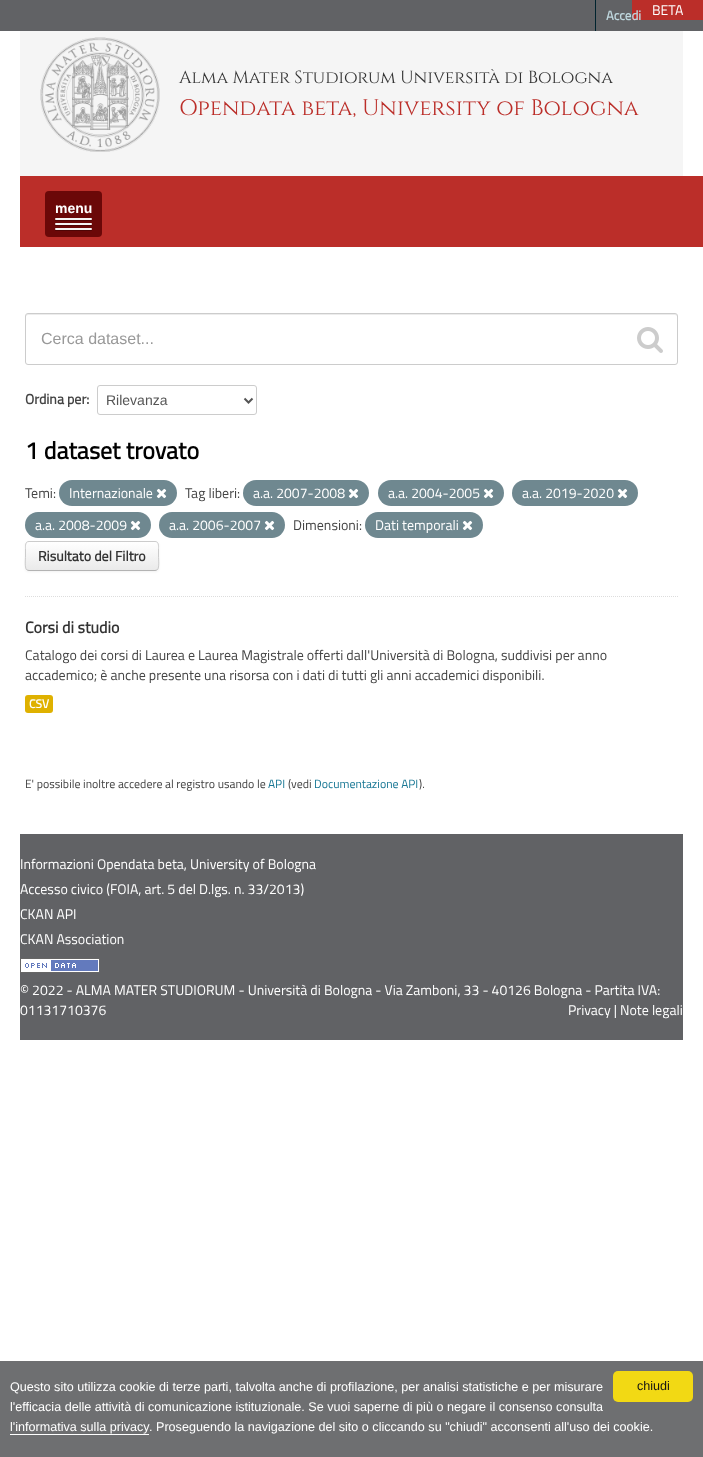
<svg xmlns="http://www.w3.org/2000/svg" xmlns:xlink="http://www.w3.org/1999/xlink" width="703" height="1457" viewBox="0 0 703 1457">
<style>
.cls-1{font:bold 13px Titillium Web;fill:#bfd7de}
.cls-2{font:14px Titillium Web;fill:#ffffff}
.cls-3{font:17.6px Cinzel;fill:#333333}
.cls-4{font:22.4px Cinzel;fill:#bb2e29}
.cls-5{font:bold 14px Liberation Sans;fill:#ffffff}
.cls-6{font:16px Liberation Sans;fill:#999999}
.cls-7{font:bold 14px Titillium Web;fill:#444444}
.cls-8{font:14px Liberation Sans;fill:#555555}
.cls-9{font:bold 24px Titillium Web;fill:#000000}
.cls-10{font:14px Titillium Web;fill:#444444}
.cls-11{font:bold 14px Titillium Web;fill:#333333}
.cls-12{font:bold 16px Titillium Web;fill:#333333}
.cls-13{font:bold 12px Titillium Web;fill:#ffffff}
.cls-14{font:11.9px Titillium Web;fill:#444444}
.cls-15{font:11.9px Titillium Web;fill:#187794}
.cls-16{font:12.6px Liberation Sans;fill:#ffffff}
.cls-17{font:12.6px Liberation Sans;fill:#141414}
</style>
<defs>
<clipPath id="clip1"><rect x="25" y="541" width="134" height="30" rx="4"/></clipPath>
<linearGradient id="g1" gradientUnits="userSpaceOnUse" x1="92" y1="542" x2="92" y2="570"><stop offset="0" stop-color="#ffffff"/><stop offset="1" stop-color="#eaeaea"/></linearGradient>
</defs>
<rect width="100%" height="100%" fill="#ffffff"/>
<rect fill="#616265" x="0" y="0" width="703" height="31"/>
<rect fill="#00232e" x="595" y="0" width="1" height="31"/>
<rect fill="#bb2e29" x="632" y="0" width="71" height="20"/>
<rect fill="#f5f5f5" x="20" y="31" width="663" height="145"/>
<image xlink:href="image0.png" x="40" y="37" width="120" height="115"/>
<rect fill="#bb2e29" x="20" y="176" width="683" height="71"/>
<rect fill="#6b0808" x="45" y="191" width="57" height="46" rx="4"/>
<path fill="#500606" d="M55 219.5C55 220 55 220.5 55.5 221H91.5C92 220.5 92 220 92 219.5L91.5 220H62H56Z"/>
<rect fill="#f5f5f5" x="55" y="218" width="37" height="2" rx="1"/>
<path fill="#500606" d="M55 224.5C55 225 55 225.5 55.5 226H91.5C92 225.5 92 225 92 224.5L91.5 225H62H56Z"/>
<rect fill="#f5f5f5" x="55" y="223" width="37" height="2" rx="1"/>
<path fill="#500606" d="M55 229.5C55 230 55 230.5 55.5 231H91.5C92 230.5 92 230 92 229.5L91.5 230H62H56Z"/>
<rect fill="#f5f5f5" x="55" y="228" width="37" height="2" rx="1"/>
<path fill="none" stroke="#dddddd" stroke-dasharray="1 1" d="M25 596.5H678"/>
<path fill="#ececec" d="M28 315H675C676 315 677 316 677 317C677 316 677 314 675 314H28C26 314 26 316 26 317C26 316 27 315 28 315Z"/>
<rect fill="none" stroke="#cccccc" x="25.5" y="313.5" width="652" height="51" rx="2.5"/>
<image xlink:href="image1.png" x="637" y="327" width="26" height="26"/>
<rect fill="none" stroke="#cccccc" x="97.5" y="385.5" width="159" height="29" rx="2.5"/>
<path fill="none" stroke="#555555" stroke-width="2" d="M244.5 398.5L248.5 402.5L252.5 398.5"/>
<rect fill="#6f8890" x="59" y="480" width="118" height="26" rx="13"/>
<image xlink:href="image2.png" x="156" y="488" width="11" height="11"/>
<rect fill="#6f8890" x="243" y="480" width="126" height="26" rx="13"/>
<image xlink:href="image2.png" x="348" y="488" width="11" height="11"/>
<rect fill="#6f8890" x="378" y="480" width="126" height="26" rx="13"/>
<image xlink:href="image2.png" x="483" y="488" width="11" height="11"/>
<rect fill="#6f8890" x="512" y="480" width="126" height="26" rx="13"/>
<image xlink:href="image2.png" x="617" y="488" width="11" height="11"/>
<rect fill="#6f8890" x="25" y="512" width="126" height="26" rx="13"/>
<image xlink:href="image2.png" x="130" y="520" width="11" height="11"/>
<rect fill="#6f8890" x="159" y="512" width="126" height="26" rx="13"/>
<image xlink:href="image2.png" x="264" y="520" width="11" height="11"/>
<rect fill="#6f8890" x="365" y="512" width="118" height="26" rx="13"/>
<image xlink:href="image2.png" x="462" y="520" width="11" height="11"/>
<rect fill="#000000" fill-opacity="0.05" filter="blur(1px)" x="25" y="542" width="134" height="30" rx="4"/>
<g clip-path="url(#clip1)">
<rect fill="url(#g1)" x="25" y="542" width="134" height="28"/>
</g>
<path fill="none" stroke="#b3b3b3" d="M157.5 569.5C157 570 156 570.5 155 570.5H29C28 570.5 27 570 26.5 569.5"/>
<path fill="none" stroke="#cccccc" d="M26.5 569.5C24.5 567.5 25.5 559 25.5 556V548.5C25.5 546 25 541.5 29 541.5H155C159 541.5 158.5 546 158.5 548.5V556C158.5 559 159.5 567.5 157.5 569.5"/>
<rect fill="#dfb100" x="25" y="695" width="28" height="18" rx="3"/>
<rect fill="#616265" x="20" y="834" width="663" height="206"/>
<image xlink:href="image3.png" x="20" y="958" width="80" height="15"/>
<rect fill="#6e6f71" x="0" y="1361" width="703" height="96"/>
<rect fill="#ffffff" x="10" y="1434" width="139" height="1"/>
<rect fill="#f2d914" x="613" y="1371" width="80" height="31" rx="5"/>
<text class="cls-1" x="606" y="20">Accedi</text>
<text class="cls-2" x="652" y="15">BETA</text>
<text class="cls-3" x="179" y="83">Alma Mater Studiorum Università di Bologna</text>
<text class="cls-4" x="179" y="115">Opendata beta, University of Bologna</text>
<text class="cls-5" x="55" y="213">menu</text>
<text class="cls-6" x="41" y="344">Cerca dataset...</text>
<text class="cls-7" x="25" y="404">Ordina per:</text>
<text class="cls-8" x="106" y="405">Rilevanza</text>
<text class="cls-9" x="25" y="459">1 dataset trovato</text>
<text class="cls-10" x="25" y="498">Temi:</text>
<text class="cls-2" x="69" y="498">Internazionale</text>
<text class="cls-10" x="185" y="498">Tag liberi:</text>
<text class="cls-2" x="253" y="498">a.a. 2007-2008</text>
<text class="cls-2" x="388" y="498">a.a. 2004-2005</text>
<text class="cls-2" x="522" y="498">a.a. 2019-2020</text>
<text class="cls-2" x="35" y="530">a.a. 2008-2009</text>
<text class="cls-2" x="169" y="530">a.a. 2006-2007</text>
<text class="cls-10" x="293" y="530">Dimensioni:</text>
<text class="cls-2" x="375" y="530">Dati temporali</text>
<text class="cls-11" x="38" y="561">Risultato del Filtro</text>
<text class="cls-12" x="25" y="633">Corsi di studio</text>
<text class="cls-10"><tspan x="25" y="660">Catalogo dei corsi di Laurea e Laurea Magistrale offerti dall'Università di Bologna, suddivisi per anno</tspan><tspan x="25" y="680">accademico; è anche presente una risorsa con i dati di tutti gli anni accademici disponibili.</tspan></text>
<text class="cls-13" x="29" y="708">CSV</text>
<text class="cls-14" x="25" y="788">E' possibile inoltre accedere al registro usando le</text>
<text class="cls-15" x="268" y="788">API</text>
<text class="cls-14" x="288" y="788">(vedi</text>
<text class="cls-15" x="314" y="788">Documentazione API</text>
<text class="cls-14" x="419" y="788">).</text>
<text class="cls-2"><tspan x="20" y="869">Informazioni Opendata beta, University of Bologna</tspan><tspan x="20" y="894">Accesso civico (FOIA, art. 5 del D.lgs. n. 33/2013)</tspan><tspan x="20" y="919">CKAN API</tspan><tspan x="20" y="944">CKAN Association</tspan></text>
<text class="cls-2"><tspan x="20" y="995">© 2022 - ALMA MATER STUDIORUM - Università di Bologna - Via Zamboni, 33 - 40126 Bologna - Partita IVA:</tspan><tspan x="20" y="1015">01131710376</tspan></text>
<text class="cls-2" x="568" y="1015">Privacy | Note legali</text>
<text class="cls-16"><tspan x="10" y="1391">Questo sito utilizza cookie di terze parti, talvolta anche di profilazione, per analisi statistiche e per misurare</tspan><tspan x="10" y="1411">l'efficacia delle attività di comunicazione istituzionale. Se vuoi saperne di più o negare il consenso consulta</tspan><tspan x="10" y="1431">l'informativa sulla privacy</tspan></text>
<text class="cls-16" x="149" y="1431">. Proseguendo la navigazione del sito o cliccando su "chiudi" acconsenti all'uso dei cookie.</text>
<text class="cls-17" x="637" y="1390">chiudi</text>
</svg>
